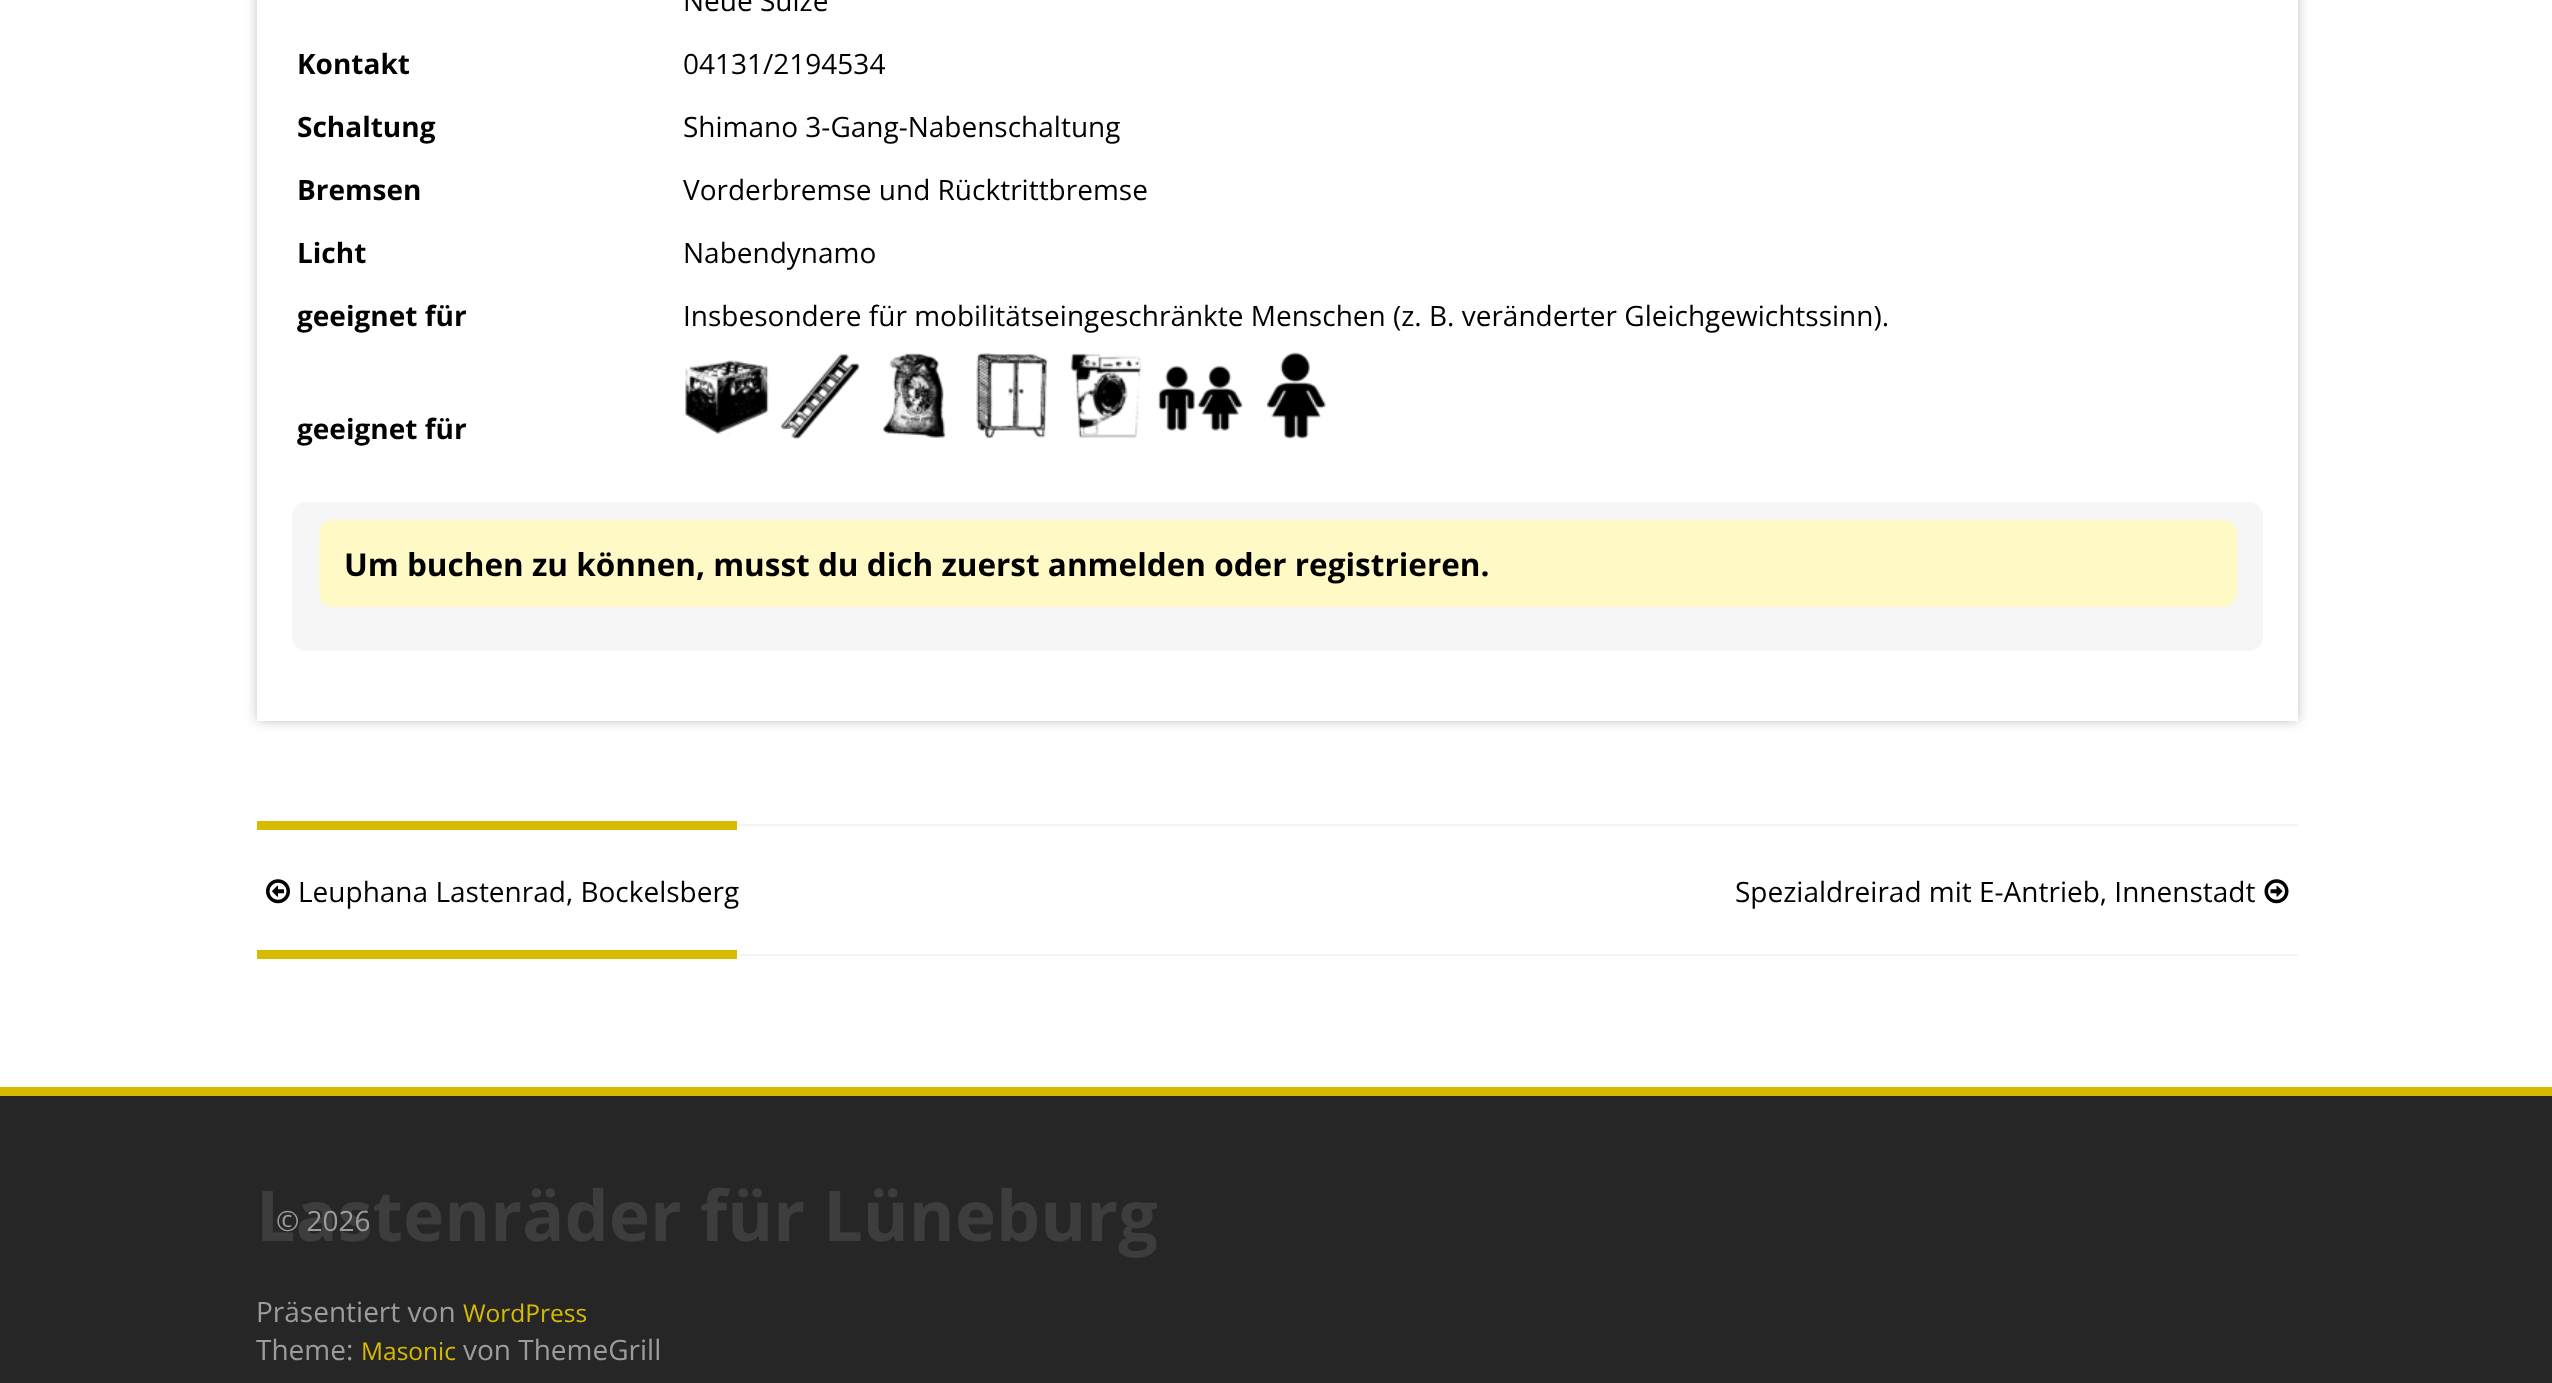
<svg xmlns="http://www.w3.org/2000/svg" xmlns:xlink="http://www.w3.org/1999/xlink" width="2552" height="1383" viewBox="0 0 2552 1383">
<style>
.cls-1{font:28px Open Sans;fill:#000000}
.cls-2{font:bold 28px Open Sans;fill:#000000}
.cls-3{font:bold 31.5px Open Sans;fill:#000000}
.cls-4{font:bold 70px Open Sans;fill:#3d3d3d}
.cls-5{font:28px Open Sans;fill:#9c9c9c}
.cls-6{font:24.5px Open Sans;fill:#d8bb00}
</style>
<rect width="100%" height="100%" fill="#ffffff"/>
<rect fill="#c2c2c2" filter="blur(6px)" x="257" y="-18" width="2041" height="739"/>
<rect fill="#ffffff" x="257" y="0" width="2041" height="721"/>
<image xlink:href="image0.png" x="685" y="360" width="84" height="75"/>
<image xlink:href="image1.png" x="780" y="354" width="80" height="85"/>
<image xlink:href="image2.png" x="883" y="353" width="63" height="85"/>
<image xlink:href="image3.png" x="976" y="352" width="72" height="87"/>
<image xlink:href="image4.png" x="1070" y="353" width="72" height="85"/>
<image xlink:href="image5.png" x="1158" y="365" width="85" height="66"/>
<image xlink:href="image6.png" x="1266" y="352" width="60" height="87"/>
<rect fill="#f6f6f6" x="292" y="502" width="1971" height="149" rx="14"/>
<rect fill="#fff9c5" x="319" y="520" width="1918" height="87" rx="14"/>
<rect fill="#d8bb00" x="257" y="821" width="480" height="9"/>
<rect fill="#f4f4f4" x="737" y="824" width="1561" height="2"/>
<image xlink:href="image7.png" x="266" y="879" width="24" height="25"/>
<image xlink:href="image8.png" x="2264" y="879" width="25" height="25"/>
<rect fill="#d8bb00" x="257" y="950" width="480" height="9"/>
<rect fill="#f4f4f4" x="737" y="954" width="1561" height="2"/>
<rect fill="#262626" x="0" y="1096" width="2552" height="287"/>
<rect fill="#d8bb00" x="0" y="1087" width="2552" height="9"/>
<text class="cls-1" x="683" y="11">Neue Sülze</text>
<text class="cls-2" x="297" y="74">Kontakt</text>
<text class="cls-1" x="683" y="74">04131/2194534</text>
<text class="cls-2" x="297" y="137">Schaltung</text>
<text class="cls-1" x="683" y="137">Shimano 3-Gang-Nabenschaltung</text>
<text class="cls-2" x="297" y="200">Bremsen</text>
<text class="cls-1" x="683" y="200">Vorderbremse und Rücktrittbremse</text>
<text class="cls-2" x="297" y="263">Licht</text>
<text class="cls-1" x="683" y="263">Nabendynamo</text>
<text class="cls-2" x="297" y="326">geeignet für</text>
<text class="cls-1" x="683" y="326">Insbesondere für mobilitätseingeschränkte Menschen (z. B. veränderter Gleichgewichtssinn).</text>
<text class="cls-2" x="297" y="439">geeignet für</text>
<text class="cls-3" x="344" y="576">Um buchen zu können, musst du dich zuerst anmelden oder registrieren.</text>
<text class="cls-1" x="298" y="902">Leuphana Lastenrad, Bockelsberg</text>
<text class="cls-1" x="1735" y="902">Spezialdreirad mit E-Antrieb, Innenstadt</text>
<text class="cls-4" x="256" y="1241">Lastenräder für Lüneburg</text>
<text class="cls-5" x="276" y="1231">© 2026</text>
<text class="cls-5" x="256" y="1322">Präsentiert von</text>
<text class="cls-6" x="463" y="1322">WordPress</text>
<text class="cls-5" x="256" y="1360">Theme:</text>
<text class="cls-6" x="361" y="1360">Masonic</text>
<text class="cls-5" x="463" y="1360">von ThemeGrill</text>
</svg>
